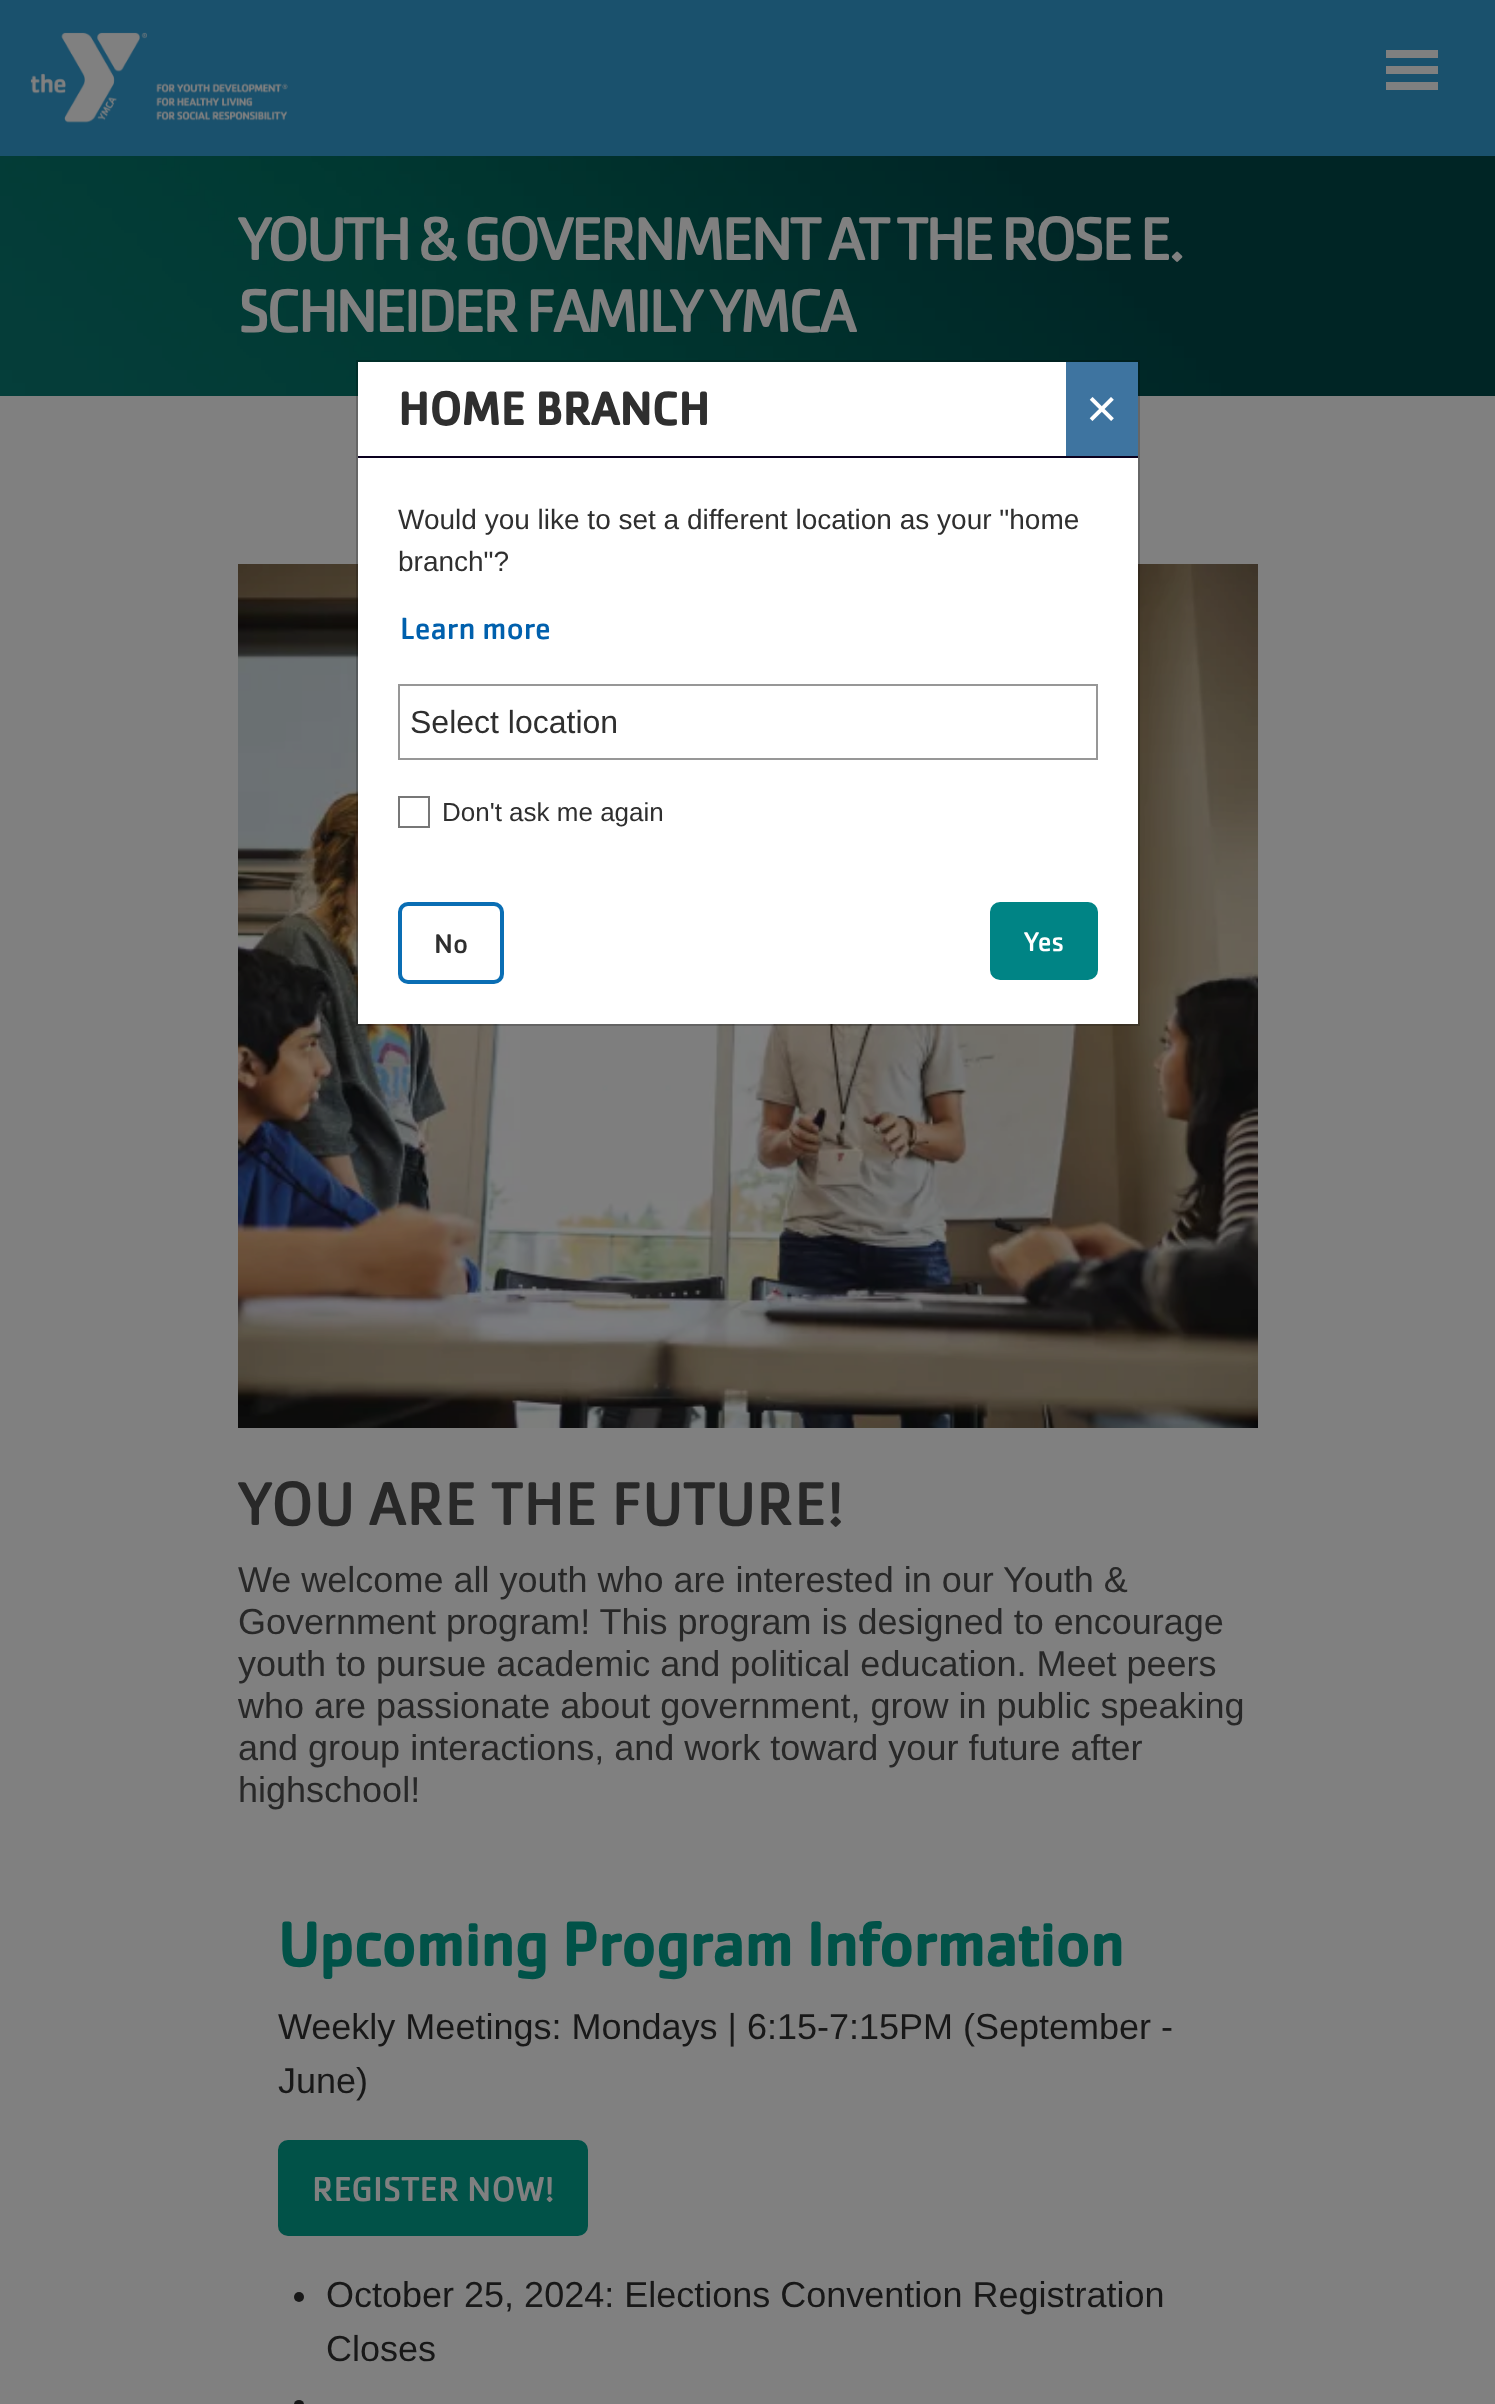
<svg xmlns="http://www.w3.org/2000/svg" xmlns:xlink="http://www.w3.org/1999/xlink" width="1495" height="2404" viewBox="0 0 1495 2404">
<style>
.cls-1{font:64px 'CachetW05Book';letter-spacing:-4px;fill:#808080}
.cls-2{font:64px 'CachetW05Book';fill:#282828}
.cls-3{font:36px Liberation Sans;fill:#282828}
.cls-4{font:bold 64px 'CachetW05Book';fill:#015248}
.cls-5{font:36px Liberation Sans;fill:#181818}
.cls-6{font:36px 'CachetW05Book';fill:#808080}
.cls-7{font:bold 48px 'CachetW05Book';fill:#2f2f2f}
.cls-8{font:54px Liberation Sans;fill:#ffffff}
.cls-9{font:28px Liberation Sans;fill:#2f2f2f}
.cls-10{font:32px 'CachetW05Book';fill:#0060ad}
.cls-11{font:32px Liberation Sans;fill:#2f2f2f}
.cls-12{font:26px Liberation Sans;fill:#2f2f2f}
.cls-13{font:28px 'CachetW05Book';fill:#2f2f2f}
.cls-14{font:28px 'CachetW05Book';fill:#ffffff}
</style>
<rect width="100%" height="100%" fill="#808080"/>
<rect fill="#1a516d" x="0" y="0" width="1495" height="156"/>
<image xlink:href="image0.png" x="30" y="32" width="258" height="91"/>
<path fill="none" stroke="#808080" stroke-width="8" stroke-linecap="square" d="M1390 54H1434M1390 70H1434M1390 86H1434"/>
<image xlink:href="image1.png" x="0" y="156" width="1495" height="240"/>
<image xlink:href="image2.png" x="238" y="564" width="1020" height="864"/>
<rect fill="#015248" stroke="#015248" stroke-width="2" x="279" y="2141" width="308" height="94" rx="9"/>
<circle fill="#181818" cx="299" cy="2297" r="5"/>
<rect fill="#181818" x="294" y="2400" width="10" height="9" rx="5"/>
<rect fill="#ffffff" x="358" y="362" width="780" height="662"/>
<rect fill="none" stroke="#000000" stroke-opacity="0.2" stroke-width="2" x="357" y="361" width="782" height="664"/>
<rect fill="#0a001f" x="358" y="456" width="780" height="2"/>
<rect fill="#3e74a0" x="1066" y="362" width="72" height="94"/>
<rect fill="none" stroke="#979797" stroke-width="2" x="399" y="685" width="698" height="74"/>
<rect fill="none" stroke="#777777" stroke-width="2" x="399" y="797" width="30" height="30"/>
<rect fill="none" stroke="#0a6eb4" stroke-width="4" x="400" y="904" width="102" height="78" rx="8"/>
<rect fill="#008485" stroke="#008485" stroke-width="2" x="991" y="903" width="106" height="76" rx="9"/>
<text class="cls-1"><tspan x="238" y="260">YOUTH &amp; GOVERNMENT AT THE ROSE E.</tspan><tspan x="238" y="332">SCHNEIDER FAMILY YMCA</tspan></text>
<text class="cls-2" x="238" y="1525">YOU ARE THE FUTURE!</text>
<text class="cls-3"><tspan x="238" y="1592">We welcome all youth who are interested in our Youth &amp;</tspan><tspan x="238" y="1634">Government program! This program is designed to encourage</tspan><tspan x="238" y="1676">youth to pursue academic and political education. Meet peers</tspan><tspan x="238" y="1718">who are passionate about government, grow in public speaking</tspan><tspan x="238" y="1760">and group interactions, and work toward your future after</tspan><tspan x="238" y="1802">highschool!</tspan></text>
<text class="cls-4" x="278" y="1966">Upcoming Program Information</text>
<text class="cls-5"><tspan x="278" y="2039">Weekly Meetings: Mondays | 6:15-7:15PM (September -</tspan><tspan x="278" y="2093">June)</tspan></text>
<text class="cls-6" x="312" y="2201">REGISTER NOW!</text>
<text class="cls-5"><tspan x="326" y="2307">October 25, 2024: Elections Convention Registration</tspan><tspan x="326" y="2361">Closes</tspan></text>
<text class="cls-7" x="398" y="425">HOME BRANCH</text>
<text class="cls-8" x="1086" y="427">×</text>
<text class="cls-9"><tspan x="398" y="529">Would you like to set a different location as your "home</tspan><tspan x="398" y="571">branch"?</tspan></text>
<text class="cls-10" x="400" y="639">Learn more</text>
<text class="cls-11" x="410" y="733">Select location</text>
<text class="cls-12" x="442" y="821">Don't ask me again</text>
<text class="cls-13" x="434" y="953">No</text>
<text class="cls-14" x="1024" y="951">Yes</text>
</svg>
